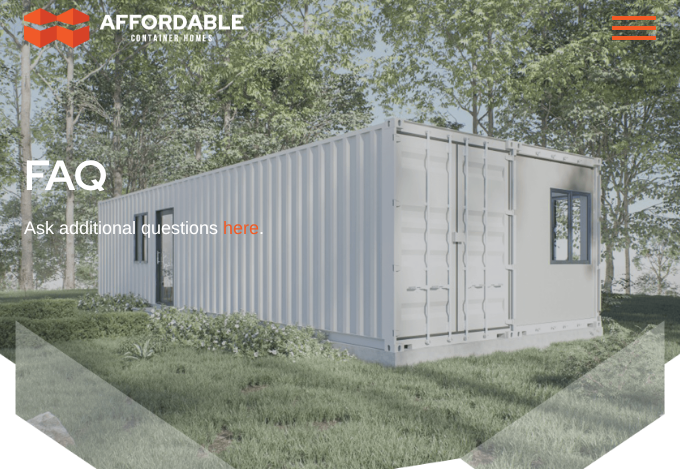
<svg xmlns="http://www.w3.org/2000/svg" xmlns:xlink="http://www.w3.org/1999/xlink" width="680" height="469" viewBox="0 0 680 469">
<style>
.cls-1{font:bold 42px Red Hat Display;fill:#ffffff}
.cls-2{font:18px Liberation Sans;fill:#ffffff}
.cls-3{font:18px Liberation Sans;fill:#f15b26}
</style>
<rect width="100%" height="100%" fill="#ffffff"/>
<image xlink:href="image1.png" x="0" y="0" width="680" height="469"/>
<image xlink:href="image0.png" x="24" y="8" width="220" height="40"/>
<rect fill="#f15b26" x="612" y="16" width="44" height="4"/>
<rect fill="#f15b26" x="612" y="26" width="44" height="4"/>
<rect fill="#f15b26" x="612" y="36" width="44" height="4"/>
<text class="cls-1" x="24" y="190">FAQ</text>
<text class="cls-2" x="24" y="234">Ask additional questions</text>
<text class="cls-3" x="223" y="234">here</text>
<text class="cls-2" x="259" y="234">.</text>
</svg>
